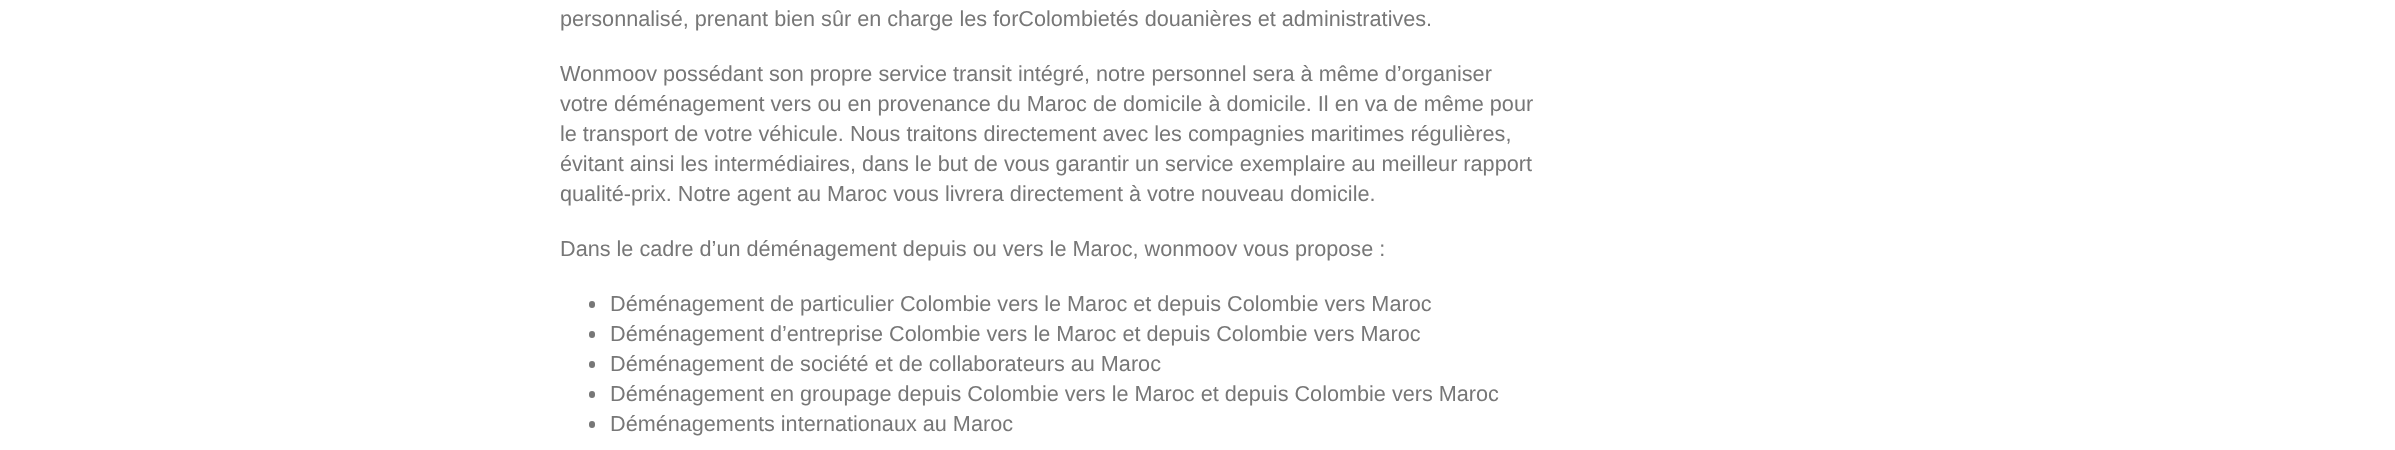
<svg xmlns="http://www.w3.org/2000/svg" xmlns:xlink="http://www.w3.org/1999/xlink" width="2395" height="450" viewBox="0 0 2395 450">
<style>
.cls-1{font:21.65px Liberation Sans;fill:#777777}
</style>
<rect width="100%" height="100%" fill="#ffffff"/>
<rect fill="#777777" x="589" y="301" width="6" height="7" rx="3"/>
<rect fill="#777777" x="589" y="331" width="6" height="7" rx="3"/>
<rect fill="#777777" x="589" y="361" width="6" height="7" rx="3"/>
<rect fill="#777777" x="589" y="391" width="6" height="7" rx="3"/>
<rect fill="#777777" x="589" y="421" width="6" height="7" rx="3"/>
<text class="cls-1" x="560" y="26">personnalisé, prenant bien sûr en charge les forColombietés douanières et administratives.</text>
<text class="cls-1"><tspan x="560" y="81">Wonmoov possédant son propre service transit intégré, notre personnel sera à même d’organiser</tspan><tspan x="560" y="111">votre déménagement vers ou en provenance du Maroc de domicile à domicile. Il en va de même pour</tspan><tspan x="560" y="141">le transport de votre véhicule. Nous traitons directement avec les compagnies maritimes régulières,</tspan><tspan x="560" y="171">évitant ainsi les intermédiaires, dans le but de vous garantir un service exemplaire au meilleur rapport</tspan><tspan x="560" y="201">qualité-prix. Notre agent au Maroc vous livrera directement à votre nouveau domicile.</tspan></text>
<text class="cls-1" x="560" y="256">Dans le cadre d’un déménagement depuis ou vers le Maroc, wonmoov vous propose :</text>
<text class="cls-1"><tspan x="610" y="311">Déménagement de particulier Colombie vers le Maroc et depuis Colombie vers Maroc</tspan><tspan x="610" y="341">Déménagement d’entreprise Colombie vers le Maroc et depuis Colombie vers Maroc</tspan><tspan x="610" y="371">Déménagement de société et de collaborateurs au Maroc</tspan><tspan x="610" y="401">Déménagement en groupage depuis Colombie vers le Maroc et depuis Colombie vers Maroc</tspan><tspan x="610" y="431">Déménagements internationaux au Maroc</tspan></text>
</svg>
